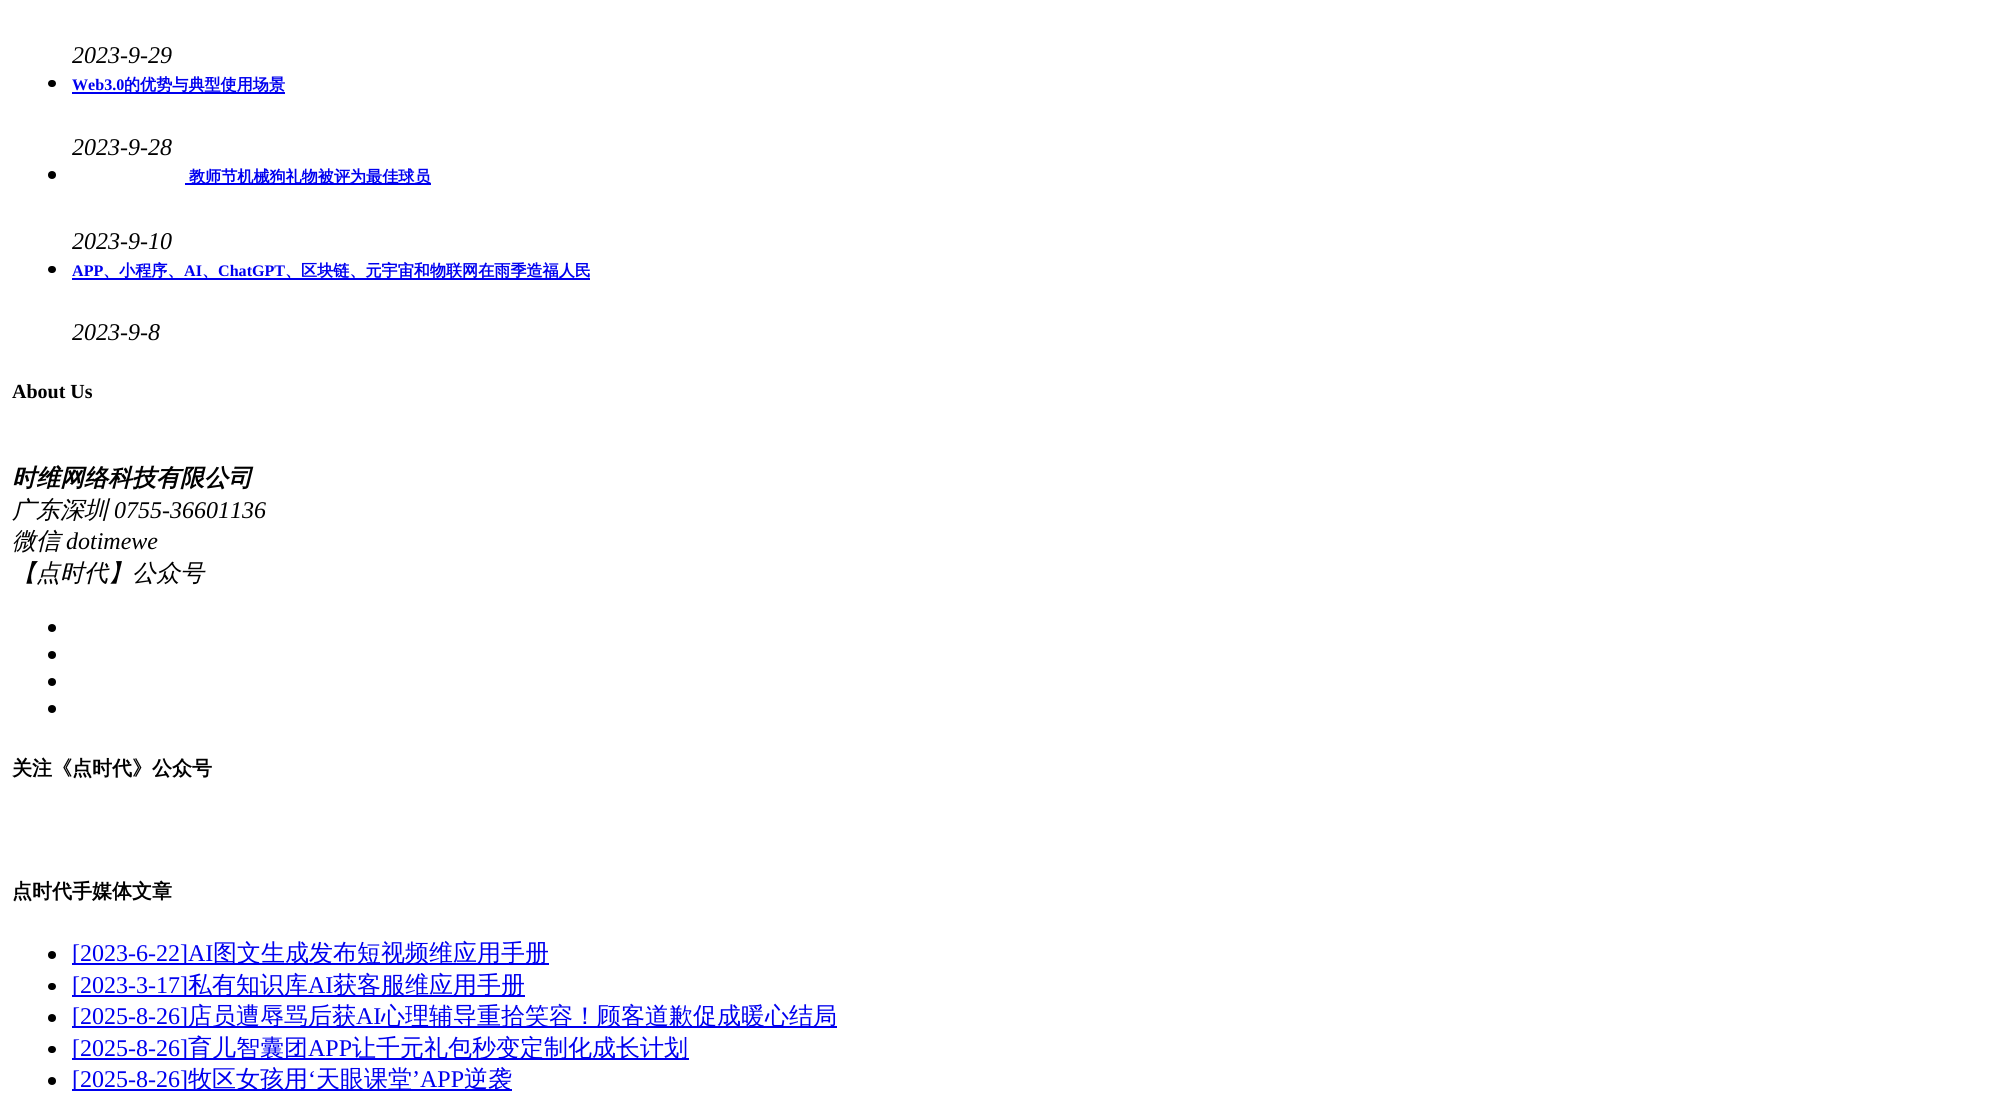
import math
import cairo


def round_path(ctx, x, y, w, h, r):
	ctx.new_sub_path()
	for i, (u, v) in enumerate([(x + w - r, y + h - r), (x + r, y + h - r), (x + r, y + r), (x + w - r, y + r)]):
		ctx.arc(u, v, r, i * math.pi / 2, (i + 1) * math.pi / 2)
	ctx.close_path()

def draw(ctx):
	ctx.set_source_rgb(1, 1, 1)
	ctx.paint()
	ctx.select_font_face('Liberation Serif', cairo.FONT_SLANT_ITALIC)
	ctx.set_font_size(24)
	ctx.set_source_rgb(0, 0, 0)
	ctx.move_to(72, 63)
	ctx.show_text('2023-9-29')
	round_path(ctx, 48, 80, 8, 7, 3.5)
	ctx.fill()
	ctx.select_font_face('Liberation Serif', cairo.FONT_SLANT_NORMAL, cairo.FONT_WEIGHT_BOLD)
	ctx.set_font_size(16.1)
	ctx.set_source_rgb(0, 0, 0.933)
	ctx.move_to(72, 90)
	ctx.show_text('Web3.0')
	ctx.rectangle(72, 92, 213, 2)
	ctx.fill()
	ctx.select_font_face('WenQuanYi Zen Hei', cairo.FONT_SLANT_NORMAL, cairo.FONT_WEIGHT_BOLD)
	ctx.move_to(124, 90)
	ctx.show_text('的优势与典型使用场景')
	ctx.select_font_face('Liberation Serif', cairo.FONT_SLANT_ITALIC)
	ctx.set_font_size(24)
	ctx.set_source_rgb(0, 0, 0)
	ctx.move_to(72, 155)
	ctx.show_text('2023-9-28')
	ctx.new_path()
	ctx.arc(52, 175, 4, 0, 2 * math.pi)
	ctx.fill()
	ctx.set_source_rgb(0, 0, 0.933)
	ctx.rectangle(185, 183, 246, 2)
	ctx.fill()
	ctx.select_font_face('WenQuanYi Zen Hei', cairo.FONT_SLANT_NORMAL, cairo.FONT_WEIGHT_BOLD)
	ctx.set_font_size(16.1)
	ctx.move_to(189, 182)
	ctx.show_text('教师节机械狗礼物被评为最佳球员')
	ctx.select_font_face('Liberation Serif', cairo.FONT_SLANT_ITALIC)
	ctx.set_font_size(24)
	ctx.set_source_rgb(0, 0, 0)
	ctx.move_to(72, 249)
	ctx.show_text('2023-9-10')
	round_path(ctx, 48, 266, 8, 7, 3.5)
	ctx.fill()
	ctx.select_font_face('Liberation Serif', cairo.FONT_SLANT_NORMAL, cairo.FONT_WEIGHT_BOLD)
	ctx.set_font_size(16.1)
	ctx.set_source_rgb(0, 0, 0.933)
	ctx.move_to(72, 276)
	ctx.show_text('APP')
	ctx.rectangle(72, 278, 518, 2)
	ctx.fill()
	ctx.select_font_face('WenQuanYi Zen Hei', cairo.FONT_SLANT_NORMAL, cairo.FONT_WEIGHT_BOLD)
	ctx.move_to(103, 276)
	ctx.show_text('、小程序、')
	ctx.select_font_face('Liberation Serif', cairo.FONT_SLANT_NORMAL, cairo.FONT_WEIGHT_BOLD)
	ctx.move_to(184, 276)
	ctx.show_text('AI')
	ctx.select_font_face('WenQuanYi Zen Hei', cairo.FONT_SLANT_NORMAL, cairo.FONT_WEIGHT_BOLD)
	ctx.move_to(202, 276)
	ctx.show_text('、')
	ctx.select_font_face('Liberation Serif', cairo.FONT_SLANT_NORMAL, cairo.FONT_WEIGHT_BOLD)
	ctx.move_to(218, 276)
	ctx.show_text('ChatGPT')
	ctx.select_font_face('WenQuanYi Zen Hei', cairo.FONT_SLANT_NORMAL, cairo.FONT_WEIGHT_BOLD)
	ctx.move_to(285, 276)
	ctx.show_text('、区块链、元宇宙和物联网在雨季造福人民')
	ctx.select_font_face('Liberation Serif', cairo.FONT_SLANT_ITALIC)
	ctx.set_font_size(24)
	ctx.set_source_rgb(0, 0, 0)
	ctx.move_to(72, 340)
	ctx.show_text('2023-9-8')
	ctx.select_font_face('Liberation Serif', cairo.FONT_SLANT_NORMAL, cairo.FONT_WEIGHT_BOLD)
	ctx.set_font_size(20)
	ctx.move_to(12, 398)
	ctx.show_text('About Us')
	ctx.select_font_face('WenQuanYi Zen Hei', cairo.FONT_SLANT_ITALIC, cairo.FONT_WEIGHT_BOLD)
	ctx.set_font_size(24)
	ctx.move_to(12, 486)
	ctx.show_text('时维网络科技有限公司')
	ctx.select_font_face('WenQuanYi Zen Hei Medium', cairo.FONT_SLANT_ITALIC)
	ctx.move_to(12, 518)
	ctx.show_text('广东深圳')
	ctx.select_font_face('Liberation Serif', cairo.FONT_SLANT_ITALIC)
	ctx.move_to(114, 518)
	ctx.show_text('0755-36601136')
	ctx.select_font_face('WenQuanYi Zen Hei Medium', cairo.FONT_SLANT_ITALIC)
	ctx.move_to(12, 549)
	ctx.show_text('微信')
	ctx.select_font_face('Liberation Serif', cairo.FONT_SLANT_ITALIC)
	ctx.move_to(66, 549)
	ctx.show_text('dotimewe')
	ctx.select_font_face('WenQuanYi Zen Hei Medium', cairo.FONT_SLANT_ITALIC)
	ctx.move_to(12, 581)
	ctx.show_text('【点时代】公众号')
	ctx.new_path()
	ctx.arc(52, 628, 4, 0, 2 * math.pi)
	ctx.fill()
	ctx.arc(52, 655, 4, 0, 2 * math.pi)
	ctx.fill()
	ctx.arc(52, 682, 4, 0, 2 * math.pi)
	ctx.fill()
	ctx.arc(52, 709, 4, 0, 2 * math.pi)
	ctx.fill()
	ctx.select_font_face('WenQuanYi Zen Hei', cairo.FONT_SLANT_NORMAL, cairo.FONT_WEIGHT_BOLD)
	ctx.set_font_size(20)
	ctx.move_to(12, 775)
	ctx.show_text('关注《点时代》公众号')
	ctx.move_to(12, 898)
	ctx.show_text('点时代手媒体文章')
	ctx.new_path()
	ctx.arc(52, 955, 4, 0, 2 * math.pi)
	ctx.fill()
	ctx.set_source_rgb(0, 0, 0.933)
	ctx.rectangle(72, 963, 477, 2)
	ctx.fill()
	ctx.select_font_face('Liberation Serif')
	ctx.set_font_size(24)
	ctx.move_to(72, 961)
	ctx.show_text('[2023-6-22]AI')
	ctx.select_font_face('WenQuanYi Zen Hei Medium')
	ctx.move_to(213, 961)
	ctx.show_text('图文生成发布短视频维应用手册')
	ctx.set_source_rgb(0, 0, 0)
	round_path(ctx, 48, 983, 8, 7, 3.5)
	ctx.fill()
	ctx.set_source_rgb(0, 0, 0.933)
	ctx.rectangle(72, 995, 453, 2)
	ctx.fill()
	ctx.select_font_face('Liberation Serif')
	ctx.move_to(72, 993)
	ctx.show_text('[2023-3-17]')
	ctx.select_font_face('WenQuanYi Zen Hei Medium')
	ctx.move_to(188, 993)
	ctx.show_text('私有知识库')
	ctx.select_font_face('Liberation Serif')
	ctx.move_to(308, 993)
	ctx.show_text('AI')
	ctx.select_font_face('WenQuanYi Zen Hei Medium')
	ctx.move_to(333, 993)
	ctx.show_text('获客服维应用手册')
	ctx.set_source_rgb(0, 0, 0)
	ctx.new_path()
	ctx.arc(52, 1018, 4, 0, 2 * math.pi)
	ctx.fill()
	ctx.set_source_rgb(0, 0, 0.933)
	ctx.rectangle(72, 1026, 765, 2)
	ctx.fill()
	ctx.select_font_face('Liberation Serif')
	ctx.move_to(72, 1024)
	ctx.show_text('[2025-8-26]')
	ctx.select_font_face('WenQuanYi Zen Hei Medium')
	ctx.move_to(188, 1024)
	ctx.show_text('店员遭辱骂后获')
	ctx.select_font_face('Liberation Serif')
	ctx.move_to(356, 1024)
	ctx.show_text('AI')
	ctx.select_font_face('WenQuanYi Zen Hei Medium')
	ctx.move_to(381, 1024)
	ctx.show_text('心理辅导重拾笑容！顾客道歉促成暖心结局')
	ctx.set_source_rgb(0, 0, 0)
	round_path(ctx, 48, 1046, 8, 7, 3.5)
	ctx.fill()
	ctx.set_source_rgb(0, 0, 0.933)
	ctx.rectangle(72, 1058, 617, 2)
	ctx.fill()
	ctx.select_font_face('Liberation Serif')
	ctx.move_to(72, 1056)
	ctx.show_text('[2025-8-26]')
	ctx.select_font_face('WenQuanYi Zen Hei Medium')
	ctx.move_to(188, 1056)
	ctx.show_text('育儿智囊团')
	ctx.select_font_face('Liberation Serif')
	ctx.move_to(308, 1056)
	ctx.show_text('APP')
	ctx.select_font_face('WenQuanYi Zen Hei Medium')
	ctx.move_to(352, 1056)
	ctx.show_text('让千元礼包秒变定制化成长计划')
	ctx.set_source_rgb(0, 0, 0)
	ctx.new_path()
	ctx.arc(52, 1081, 4, 0, 2 * math.pi)
	ctx.fill()
	ctx.set_source_rgb(0, 0, 0.933)
	ctx.rectangle(72, 1089, 440, 2)
	ctx.fill()
	ctx.select_font_face('Liberation Serif')
	ctx.move_to(72, 1087)
	ctx.show_text('[2025-8-26]')
	ctx.select_font_face('WenQuanYi Zen Hei Medium')
	ctx.move_to(188, 1087)
	ctx.show_text('牧区女孩用')
	ctx.select_font_face('Liberation Serif')
	ctx.move_to(308, 1087)
	ctx.show_text('‘')
	ctx.select_font_face('WenQuanYi Zen Hei Medium')
	ctx.move_to(316, 1087)
	ctx.show_text('天眼课堂')
	ctx.select_font_face('Liberation Serif')
	ctx.move_to(412, 1087)
	ctx.show_text('’APP')
	ctx.select_font_face('WenQuanYi Zen Hei Medium')
	ctx.move_to(464, 1087)
	ctx.show_text('逆袭')


surface = cairo.ImageSurface(cairo.FORMAT_RGB24, 2010, 1101)
ctx = cairo.Context(surface)
options = cairo.FontOptions()
options.set_hint_metrics(cairo.HINT_METRICS_OFF)
options.set_hint_style(cairo.HINT_STYLE_NONE)
ctx.set_font_options(options)
ctx.set_miter_limit(4)
draw(ctx)
surface.write_to_png('image.png')
